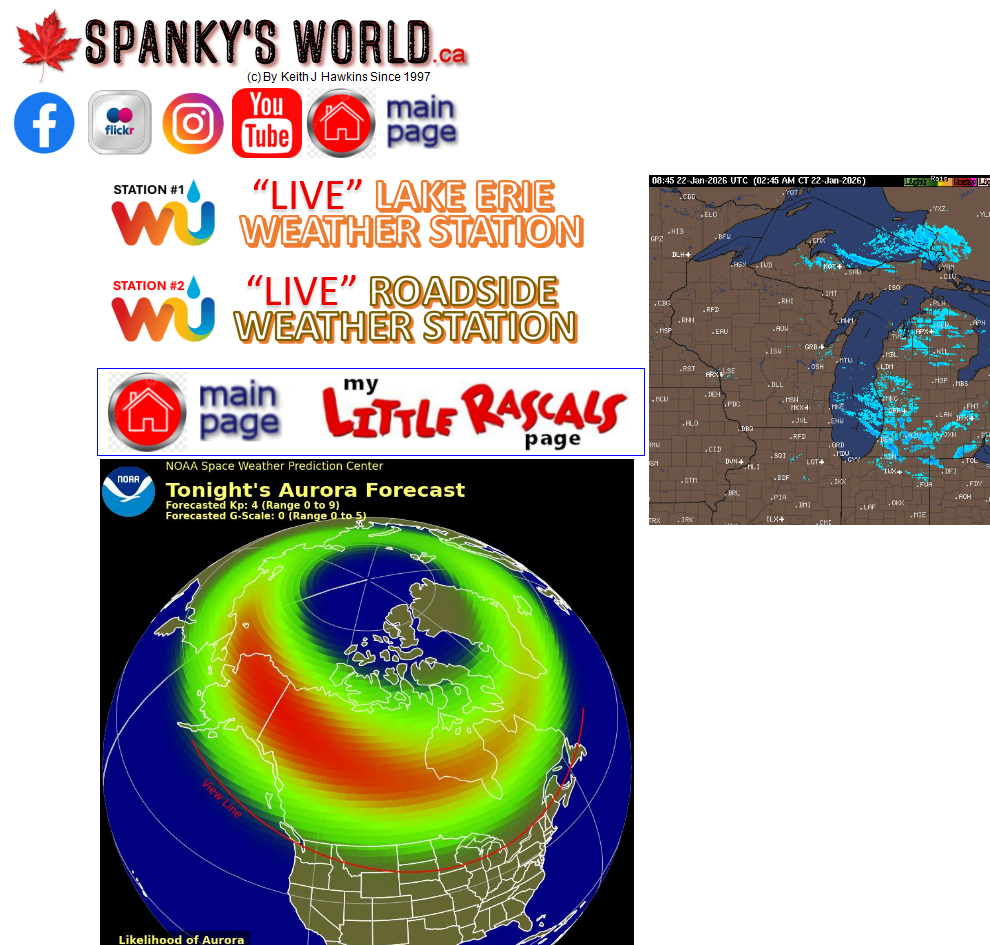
import math
import cairo


def paste(ctx, path, x, y, w, h):
	ctx.save()
	ctx.set_source_surface(cairo.ImageSurface.create_from_png(path), x, y)
	ctx.rectangle(x, y, w, h)
	ctx.fill()
	ctx.restore()

def draw(ctx):
	ctx.set_source_rgb(1, 1, 1)
	ctx.paint()
	paste(ctx, 'media/1.png', 14, 8, 457, 76)
	paste(ctx, 'media/2.png', 13, 91, 62, 63)
	paste(ctx, 'media/3.png', 88, 90, 64, 65)
	paste(ctx, 'media/4.png', 162, 92, 63, 63)
	paste(ctx, 'media/5.png', 232, 88, 70, 70)
	paste(ctx, 'media/6.png', 306, 88, 154, 70)
	paste(ctx, 'media/7.png', 111, 178, 473, 70)
	paste(ctx, 'media/8.png', 111, 274, 467, 70)
	ctx.rectangle(97.5, 368.5, 547, 87)
	ctx.set_source_rgb(0, 0, 1)
	ctx.set_line_width(1)
	ctx.stroke()
	paste(ctx, 'media/9.png', 107, 372, 188, 80)
	paste(ctx, 'media/10.png', 320, 378, 309, 73)
	ctx.rectangle(101, 460, 532, 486)
	ctx.set_source_rgb(0, 0, 0)
	ctx.set_line_width(2)
	ctx.stroke()
	paste(ctx, 'media/11.png', 102, 461, 530, 484)
	paste(ctx, 'media/12.png', 649, 175, 341, 350)


surface = cairo.ImageSurface(cairo.FORMAT_RGB24, 990, 945)
ctx = cairo.Context(surface)
options = cairo.FontOptions()
options.set_hint_metrics(cairo.HINT_METRICS_OFF)
options.set_hint_style(cairo.HINT_STYLE_NONE)
ctx.set_font_options(options)
ctx.set_miter_limit(4)
draw(ctx)
surface.write_to_png('image.png')
